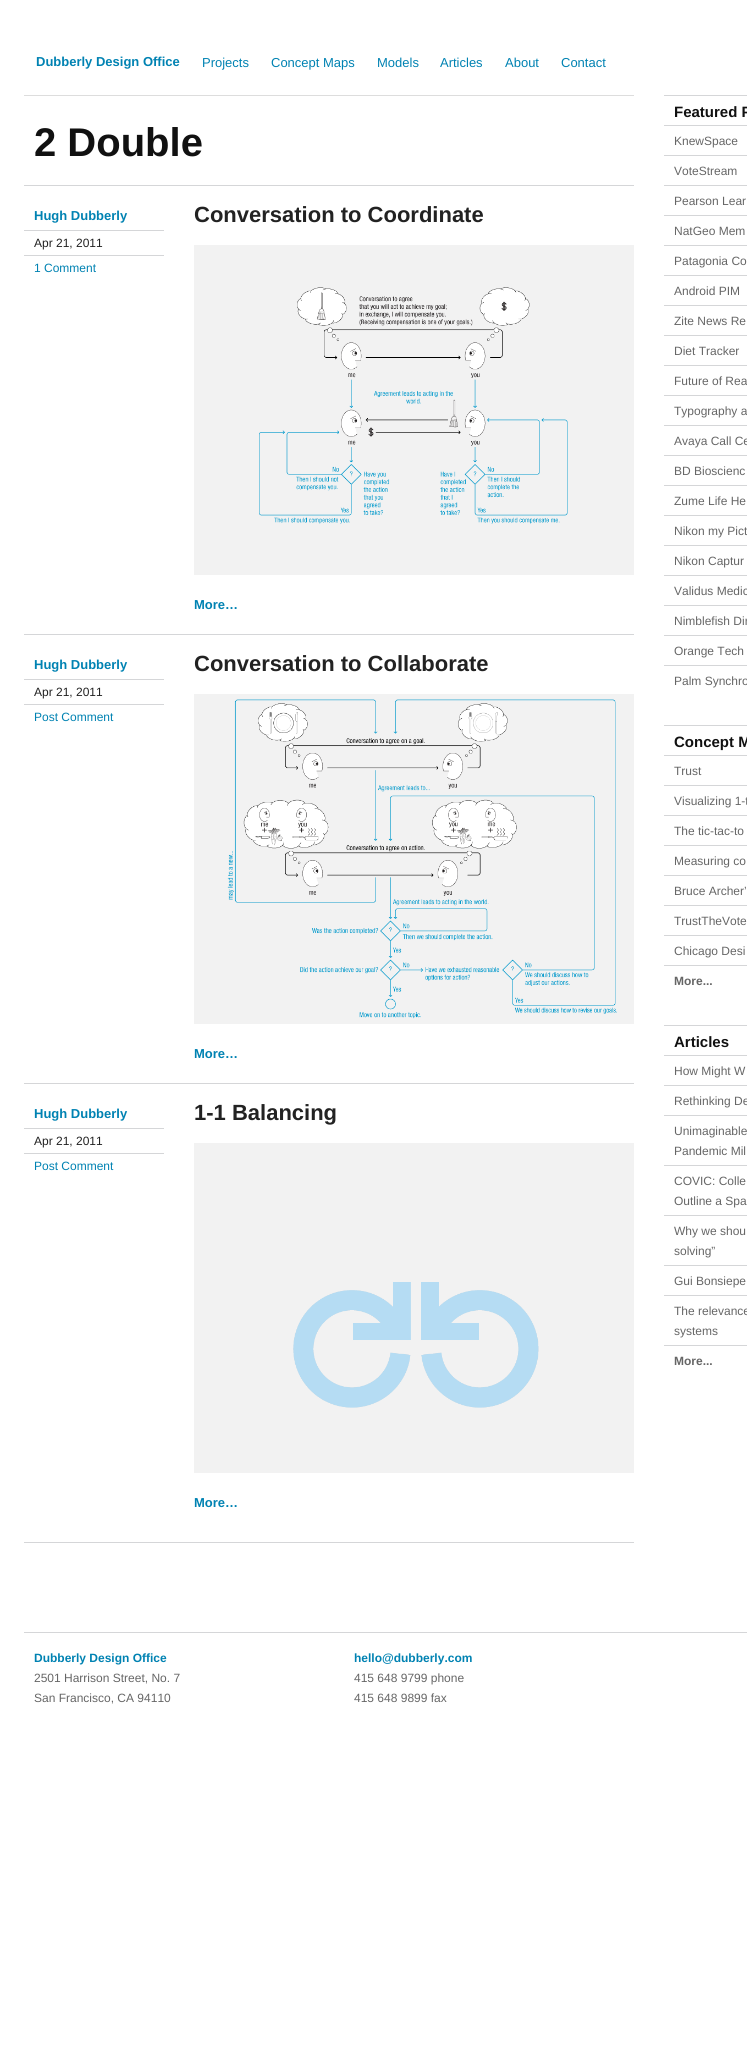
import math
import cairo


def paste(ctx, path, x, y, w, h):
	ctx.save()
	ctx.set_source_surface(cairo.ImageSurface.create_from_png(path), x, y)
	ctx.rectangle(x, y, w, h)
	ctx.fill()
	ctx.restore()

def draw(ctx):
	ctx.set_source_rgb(1, 1, 1)
	ctx.paint()
	ctx.select_font_face('Liberation Sans', cairo.FONT_SLANT_NORMAL, cairo.FONT_WEIGHT_BOLD)
	ctx.set_font_size(13)
	ctx.set_source_rgb(0, 0.51, 0.698)
	ctx.move_to(36, 66)
	ctx.show_text('Dubberly Design Office')
	ctx.select_font_face('Liberation Sans')
	for x, y, s in [
		(202, 67, 'Projects'),
		(271, 67, 'Concept Maps'),
		(377, 67, 'Models'),
		(440, 67, 'Articles'),
		(505, 67, 'About'),
		(561, 67, 'Contact'),
	]:
		ctx.move_to(x, y)
		ctx.show_text(s)
	ctx.set_source_rgb(0.867, 0.867, 0.867)
	ctx.rectangle(24, 95, 610, 1)
	ctx.fill()
	ctx.select_font_face('Liberation Sans', cairo.FONT_SLANT_NORMAL, cairo.FONT_WEIGHT_BOLD)
	ctx.set_font_size(40)
	ctx.set_source_rgb(0.067, 0.067, 0.067)
	ctx.move_to(34, 156)
	ctx.show_text('2 Double')
	ctx.set_source_rgb(0.835, 0.839, 0.847)
	ctx.rectangle(24, 185, 610, 1)
	ctx.fill()
	ctx.set_font_size(13)
	ctx.set_source_rgb(0, 0.51, 0.698)
	ctx.move_to(34, 220)
	ctx.show_text('Hugh Dubberly')
	ctx.set_source_rgb(0.835, 0.839, 0.847)
	ctx.rectangle(24, 230, 140, 1)
	ctx.fill()
	ctx.select_font_face('Liberation Sans')
	ctx.set_font_size(12)
	ctx.set_source_rgb(0.133, 0.133, 0.133)
	ctx.move_to(34, 247)
	ctx.show_text('Apr 21, 2011')
	ctx.set_source_rgb(0.835, 0.839, 0.847)
	ctx.rectangle(24, 255, 140, 1)
	ctx.fill()
	ctx.set_source_rgb(0, 0.51, 0.698)
	ctx.move_to(34, 272)
	ctx.show_text('1 Comment')
	ctx.select_font_face('Liberation Sans', cairo.FONT_SLANT_NORMAL, cairo.FONT_WEIGHT_BOLD)
	ctx.set_font_size(22)
	ctx.set_source_rgb(0.133, 0.133, 0.133)
	ctx.move_to(194, 222)
	ctx.show_text('Conversation to Coordinate')
	paste(ctx, 'media/1.png', 194, 245, 440, 330)
	ctx.set_font_size(13)
	ctx.set_source_rgb(0, 0.51, 0.698)
	ctx.move_to(194, 609)
	ctx.show_text('More…')
	ctx.set_source_rgb(0.835, 0.839, 0.847)
	ctx.rectangle(24, 634, 610, 1)
	ctx.fill()
	ctx.set_source_rgb(0, 0.51, 0.698)
	ctx.move_to(34, 669)
	ctx.show_text('Hugh Dubberly')
	ctx.set_source_rgb(0.835, 0.839, 0.847)
	ctx.rectangle(24, 679, 140, 1)
	ctx.fill()
	ctx.select_font_face('Liberation Sans')
	ctx.set_font_size(12)
	ctx.set_source_rgb(0.133, 0.133, 0.133)
	ctx.move_to(34, 696)
	ctx.show_text('Apr 21, 2011')
	ctx.set_source_rgb(0.835, 0.839, 0.847)
	ctx.rectangle(24, 704, 140, 1)
	ctx.fill()
	ctx.set_source_rgb(0, 0.51, 0.698)
	ctx.move_to(34, 721)
	ctx.show_text('Post Comment')
	ctx.select_font_face('Liberation Sans', cairo.FONT_SLANT_NORMAL, cairo.FONT_WEIGHT_BOLD)
	ctx.set_font_size(22)
	ctx.set_source_rgb(0.133, 0.133, 0.133)
	ctx.move_to(194, 671)
	ctx.show_text('Conversation to Collaborate')
	paste(ctx, 'media/2.png', 194, 694, 440, 330)
	ctx.set_font_size(13)
	ctx.set_source_rgb(0, 0.51, 0.698)
	ctx.move_to(194, 1058)
	ctx.show_text('More…')
	ctx.set_source_rgb(0.835, 0.839, 0.847)
	ctx.rectangle(24, 1083, 610, 1)
	ctx.fill()
	ctx.set_source_rgb(0, 0.51, 0.698)
	ctx.move_to(34, 1118)
	ctx.show_text('Hugh Dubberly')
	ctx.set_source_rgb(0.835, 0.839, 0.847)
	ctx.rectangle(24, 1128, 140, 1)
	ctx.fill()
	ctx.select_font_face('Liberation Sans')
	ctx.set_font_size(12)
	ctx.set_source_rgb(0.133, 0.133, 0.133)
	ctx.move_to(34, 1145)
	ctx.show_text('Apr 21, 2011')
	ctx.set_source_rgb(0.835, 0.839, 0.847)
	ctx.rectangle(24, 1153, 140, 1)
	ctx.fill()
	ctx.set_source_rgb(0, 0.51, 0.698)
	ctx.move_to(34, 1170)
	ctx.show_text('Post Comment')
	ctx.select_font_face('Liberation Sans', cairo.FONT_SLANT_NORMAL, cairo.FONT_WEIGHT_BOLD)
	ctx.set_font_size(22)
	ctx.set_source_rgb(0.133, 0.133, 0.133)
	ctx.move_to(194, 1120)
	ctx.show_text('1-1 Balancing')
	paste(ctx, 'media/3.png', 194, 1143, 440, 330)
	ctx.set_font_size(13)
	ctx.set_source_rgb(0, 0.51, 0.698)
	ctx.move_to(194, 1507)
	ctx.show_text('More…')
	ctx.set_source_rgb(0.835, 0.839, 0.847)
	ctx.rectangle(24, 1542, 610, 1)
	ctx.fill()
	ctx.rectangle(664, 95, 83, 1)
	ctx.fill()
	ctx.set_font_size(15)
	ctx.set_source_rgb(0.067, 0.067, 0.067)
	ctx.move_to(674, 117)
	ctx.show_text('Featured P')
	ctx.set_source_rgb(0.835, 0.839, 0.847)
	ctx.rectangle(664, 125, 83, 1)
	ctx.fill()
	ctx.select_font_face('Liberation Sans')
	ctx.set_font_size(12)
	ctx.set_source_rgb(0.4, 0.4, 0.4)
	ctx.move_to(674, 145)
	ctx.show_text('KnewSpace')
	ctx.set_source_rgb(0.835, 0.839, 0.847)
	ctx.rectangle(664, 155, 83, 1)
	ctx.fill()
	ctx.set_source_rgb(0.4, 0.4, 0.4)
	ctx.move_to(674, 175)
	ctx.show_text('VoteStream')
	ctx.set_source_rgb(0.835, 0.839, 0.847)
	ctx.rectangle(664, 185, 83, 1)
	ctx.fill()
	ctx.set_source_rgb(0.4, 0.4, 0.4)
	ctx.move_to(674, 205)
	ctx.show_text('Pearson Lear')
	ctx.set_source_rgb(0.835, 0.839, 0.847)
	ctx.rectangle(664, 215, 83, 1)
	ctx.fill()
	ctx.set_source_rgb(0.4, 0.4, 0.4)
	ctx.move_to(674, 235)
	ctx.show_text('NatGeo Mem')
	ctx.set_source_rgb(0.835, 0.839, 0.847)
	ctx.rectangle(664, 245, 83, 1)
	ctx.fill()
	ctx.set_source_rgb(0.4, 0.4, 0.4)
	ctx.move_to(674, 265)
	ctx.show_text('Patagonia Co')
	ctx.set_source_rgb(0.835, 0.839, 0.847)
	ctx.rectangle(664, 275, 83, 1)
	ctx.fill()
	ctx.set_source_rgb(0.4, 0.4, 0.4)
	ctx.move_to(674, 295)
	ctx.show_text('Android PIM')
	ctx.set_source_rgb(0.835, 0.839, 0.847)
	ctx.rectangle(664, 305, 83, 1)
	ctx.fill()
	ctx.set_source_rgb(0.4, 0.4, 0.4)
	ctx.move_to(674, 325)
	ctx.show_text('Zite News Re')
	ctx.set_source_rgb(0.835, 0.839, 0.847)
	ctx.rectangle(664, 335, 83, 1)
	ctx.fill()
	ctx.set_source_rgb(0.4, 0.4, 0.4)
	ctx.move_to(674, 355)
	ctx.show_text('Diet Tracker')
	ctx.set_source_rgb(0.835, 0.839, 0.847)
	ctx.rectangle(664, 365, 83, 1)
	ctx.fill()
	ctx.set_source_rgb(0.4, 0.4, 0.4)
	ctx.move_to(674, 385)
	ctx.show_text('Future of Rea')
	ctx.set_source_rgb(0.835, 0.839, 0.847)
	ctx.rectangle(664, 395, 83, 1)
	ctx.fill()
	ctx.set_source_rgb(0.4, 0.4, 0.4)
	ctx.move_to(674, 415)
	ctx.show_text('Typography a')
	ctx.set_source_rgb(0.835, 0.839, 0.847)
	ctx.rectangle(664, 425, 83, 1)
	ctx.fill()
	ctx.set_source_rgb(0.4, 0.4, 0.4)
	ctx.move_to(674, 445)
	ctx.show_text('Avaya Call Ce')
	ctx.set_source_rgb(0.835, 0.839, 0.847)
	ctx.rectangle(664, 455, 83, 1)
	ctx.fill()
	ctx.set_source_rgb(0.4, 0.4, 0.4)
	ctx.move_to(674, 475)
	ctx.show_text('BD Bioscienc')
	ctx.set_source_rgb(0.835, 0.839, 0.847)
	ctx.rectangle(664, 485, 83, 1)
	ctx.fill()
	ctx.set_source_rgb(0.4, 0.4, 0.4)
	ctx.move_to(674, 505)
	ctx.show_text('Zume Life He')
	ctx.set_source_rgb(0.835, 0.839, 0.847)
	ctx.rectangle(664, 515, 83, 1)
	ctx.fill()
	ctx.set_source_rgb(0.4, 0.4, 0.4)
	ctx.move_to(674, 535)
	ctx.show_text('Nikon my Pict')
	ctx.set_source_rgb(0.835, 0.839, 0.847)
	ctx.rectangle(664, 545, 83, 1)
	ctx.fill()
	ctx.set_source_rgb(0.4, 0.4, 0.4)
	ctx.move_to(674, 565)
	ctx.show_text('Nikon Captur')
	ctx.set_source_rgb(0.835, 0.839, 0.847)
	ctx.rectangle(664, 575, 83, 1)
	ctx.fill()
	ctx.set_source_rgb(0.4, 0.4, 0.4)
	ctx.move_to(674, 595)
	ctx.show_text('Validus Medic')
	ctx.set_source_rgb(0.835, 0.839, 0.847)
	ctx.rectangle(664, 605, 83, 1)
	ctx.fill()
	ctx.set_source_rgb(0.4, 0.4, 0.4)
	ctx.move_to(674, 625)
	ctx.show_text('Nimblefish Dir')
	ctx.set_source_rgb(0.835, 0.839, 0.847)
	ctx.rectangle(664, 635, 83, 1)
	ctx.fill()
	ctx.set_source_rgb(0.4, 0.4, 0.4)
	ctx.move_to(674, 655)
	ctx.show_text('Orange Tech')
	ctx.set_source_rgb(0.835, 0.839, 0.847)
	ctx.rectangle(664, 665, 83, 1)
	ctx.fill()
	ctx.set_source_rgb(0.4, 0.4, 0.4)
	ctx.move_to(674, 685)
	ctx.show_text('Palm Synchro')
	ctx.set_source_rgb(0.835, 0.839, 0.847)
	ctx.rectangle(664, 725, 83, 1)
	ctx.fill()
	ctx.select_font_face('Liberation Sans', cairo.FONT_SLANT_NORMAL, cairo.FONT_WEIGHT_BOLD)
	ctx.set_font_size(15)
	ctx.set_source_rgb(0.067, 0.067, 0.067)
	ctx.move_to(674, 747)
	ctx.show_text('Concept M')
	ctx.set_source_rgb(0.835, 0.839, 0.847)
	ctx.rectangle(664, 755, 83, 1)
	ctx.fill()
	ctx.select_font_face('Liberation Sans')
	ctx.set_font_size(12)
	ctx.set_source_rgb(0.4, 0.4, 0.4)
	ctx.move_to(674, 775)
	ctx.show_text('Trust')
	ctx.set_source_rgb(0.835, 0.839, 0.847)
	ctx.rectangle(664, 785, 83, 1)
	ctx.fill()
	ctx.set_source_rgb(0.4, 0.4, 0.4)
	ctx.move_to(674, 805)
	ctx.show_text('Visualizing 1-t')
	ctx.set_source_rgb(0.835, 0.839, 0.847)
	ctx.rectangle(664, 815, 83, 1)
	ctx.fill()
	ctx.set_source_rgb(0.4, 0.4, 0.4)
	ctx.move_to(674, 835)
	ctx.show_text('The tic-tac-to')
	ctx.set_source_rgb(0.835, 0.839, 0.847)
	ctx.rectangle(664, 845, 83, 1)
	ctx.fill()
	ctx.set_source_rgb(0.4, 0.4, 0.4)
	ctx.move_to(674, 865)
	ctx.show_text('Measuring co')
	ctx.set_source_rgb(0.835, 0.839, 0.847)
	ctx.rectangle(664, 875, 83, 1)
	ctx.fill()
	ctx.set_source_rgb(0.4, 0.4, 0.4)
	ctx.move_to(674, 895)
	ctx.show_text('Bruce Archer’')
	ctx.set_source_rgb(0.835, 0.839, 0.847)
	ctx.rectangle(664, 905, 83, 1)
	ctx.fill()
	ctx.set_source_rgb(0.4, 0.4, 0.4)
	ctx.move_to(674, 925)
	ctx.show_text('TrustTheVote')
	ctx.set_source_rgb(0.835, 0.839, 0.847)
	ctx.rectangle(664, 935, 83, 1)
	ctx.fill()
	ctx.set_source_rgb(0.4, 0.4, 0.4)
	ctx.move_to(674, 955)
	ctx.show_text('Chicago Desi')
	ctx.set_source_rgb(0.835, 0.839, 0.847)
	ctx.rectangle(664, 965, 83, 1)
	ctx.fill()
	ctx.select_font_face('Liberation Sans', cairo.FONT_SLANT_NORMAL, cairo.FONT_WEIGHT_BOLD)
	ctx.set_source_rgb(0.4, 0.4, 0.4)
	ctx.move_to(674, 985)
	ctx.show_text('More...')
	ctx.set_source_rgb(0.835, 0.839, 0.847)
	ctx.rectangle(664, 1025, 83, 1)
	ctx.fill()
	ctx.set_font_size(15)
	ctx.set_source_rgb(0.067, 0.067, 0.067)
	ctx.move_to(674, 1047)
	ctx.show_text('Articles')
	ctx.set_source_rgb(0.835, 0.839, 0.847)
	ctx.rectangle(664, 1055, 83, 1)
	ctx.fill()
	ctx.select_font_face('Liberation Sans')
	ctx.set_font_size(12)
	ctx.set_source_rgb(0.4, 0.4, 0.4)
	ctx.move_to(674, 1075)
	ctx.show_text('How Might W')
	ctx.set_source_rgb(0.835, 0.839, 0.847)
	ctx.rectangle(664, 1085, 83, 1)
	ctx.fill()
	ctx.set_source_rgb(0.4, 0.4, 0.4)
	ctx.move_to(674, 1105)
	ctx.show_text('Rethinking De')
	ctx.set_source_rgb(0.835, 0.839, 0.847)
	ctx.rectangle(664, 1115, 83, 1)
	ctx.fill()
	ctx.set_source_rgb(0.4, 0.4, 0.4)
	ctx.move_to(674, 1135)
	ctx.show_text('Unimaginable')
	ctx.move_to(674, 1155)
	ctx.show_text('Pandemic Mil')
	ctx.set_source_rgb(0.835, 0.839, 0.847)
	ctx.rectangle(664, 1165, 83, 1)
	ctx.fill()
	ctx.set_source_rgb(0.4, 0.4, 0.4)
	ctx.move_to(674, 1185)
	ctx.show_text('COVIC: Colle')
	ctx.move_to(674, 1205)
	ctx.show_text('Outline a Spa')
	ctx.set_source_rgb(0.835, 0.839, 0.847)
	ctx.rectangle(664, 1215, 83, 1)
	ctx.fill()
	ctx.set_source_rgb(0.4, 0.4, 0.4)
	ctx.move_to(674, 1235)
	ctx.show_text('Why we shou')
	ctx.move_to(674, 1255)
	ctx.show_text('solving”')
	ctx.set_source_rgb(0.835, 0.839, 0.847)
	ctx.rectangle(664, 1265, 83, 1)
	ctx.fill()
	ctx.set_source_rgb(0.4, 0.4, 0.4)
	ctx.move_to(674, 1285)
	ctx.show_text('Gui Bonsiepe')
	ctx.set_source_rgb(0.835, 0.839, 0.847)
	ctx.rectangle(664, 1295, 83, 1)
	ctx.fill()
	ctx.set_source_rgb(0.4, 0.4, 0.4)
	ctx.move_to(674, 1315)
	ctx.show_text('The relevance')
	ctx.move_to(674, 1335)
	ctx.show_text('systems')
	ctx.set_source_rgb(0.835, 0.839, 0.847)
	ctx.rectangle(664, 1345, 83, 1)
	ctx.fill()
	ctx.select_font_face('Liberation Sans', cairo.FONT_SLANT_NORMAL, cairo.FONT_WEIGHT_BOLD)
	ctx.set_source_rgb(0.4, 0.4, 0.4)
	ctx.move_to(674, 1365)
	ctx.show_text('More...')
	ctx.set_source_rgb(0.835, 0.839, 0.847)
	ctx.rectangle(24, 1632, 723, 1)
	ctx.fill()
	ctx.set_source_rgb(0, 0.51, 0.698)
	ctx.move_to(34, 1662)
	ctx.show_text('Dubberly Design Office')
	ctx.select_font_face('Liberation Sans')
	ctx.set_source_rgb(0.4, 0.4, 0.4)
	ctx.move_to(34, 1682)
	ctx.show_text('2501 Harrison Street, No. 7')
	ctx.move_to(34, 1702)
	ctx.show_text('San Francisco, CA 94110')
	ctx.select_font_face('Liberation Sans', cairo.FONT_SLANT_NORMAL, cairo.FONT_WEIGHT_BOLD)
	ctx.set_source_rgb(0, 0.51, 0.698)
	ctx.move_to(354, 1662)
	ctx.show_text('hello@dubberly.com')
	ctx.select_font_face('Liberation Sans')
	ctx.set_source_rgb(0.4, 0.4, 0.4)
	ctx.move_to(354, 1682)
	ctx.show_text('415 648 9799 phone')
	ctx.move_to(354, 1702)
	ctx.show_text('415 648 9899 fax')


surface = cairo.ImageSurface(cairo.FORMAT_RGB24, 747, 2066)
ctx = cairo.Context(surface)
options = cairo.FontOptions()
options.set_hint_metrics(cairo.HINT_METRICS_OFF)
options.set_hint_style(cairo.HINT_STYLE_NONE)
ctx.set_font_options(options)
ctx.set_miter_limit(4)
draw(ctx)
surface.write_to_png('image.png')
